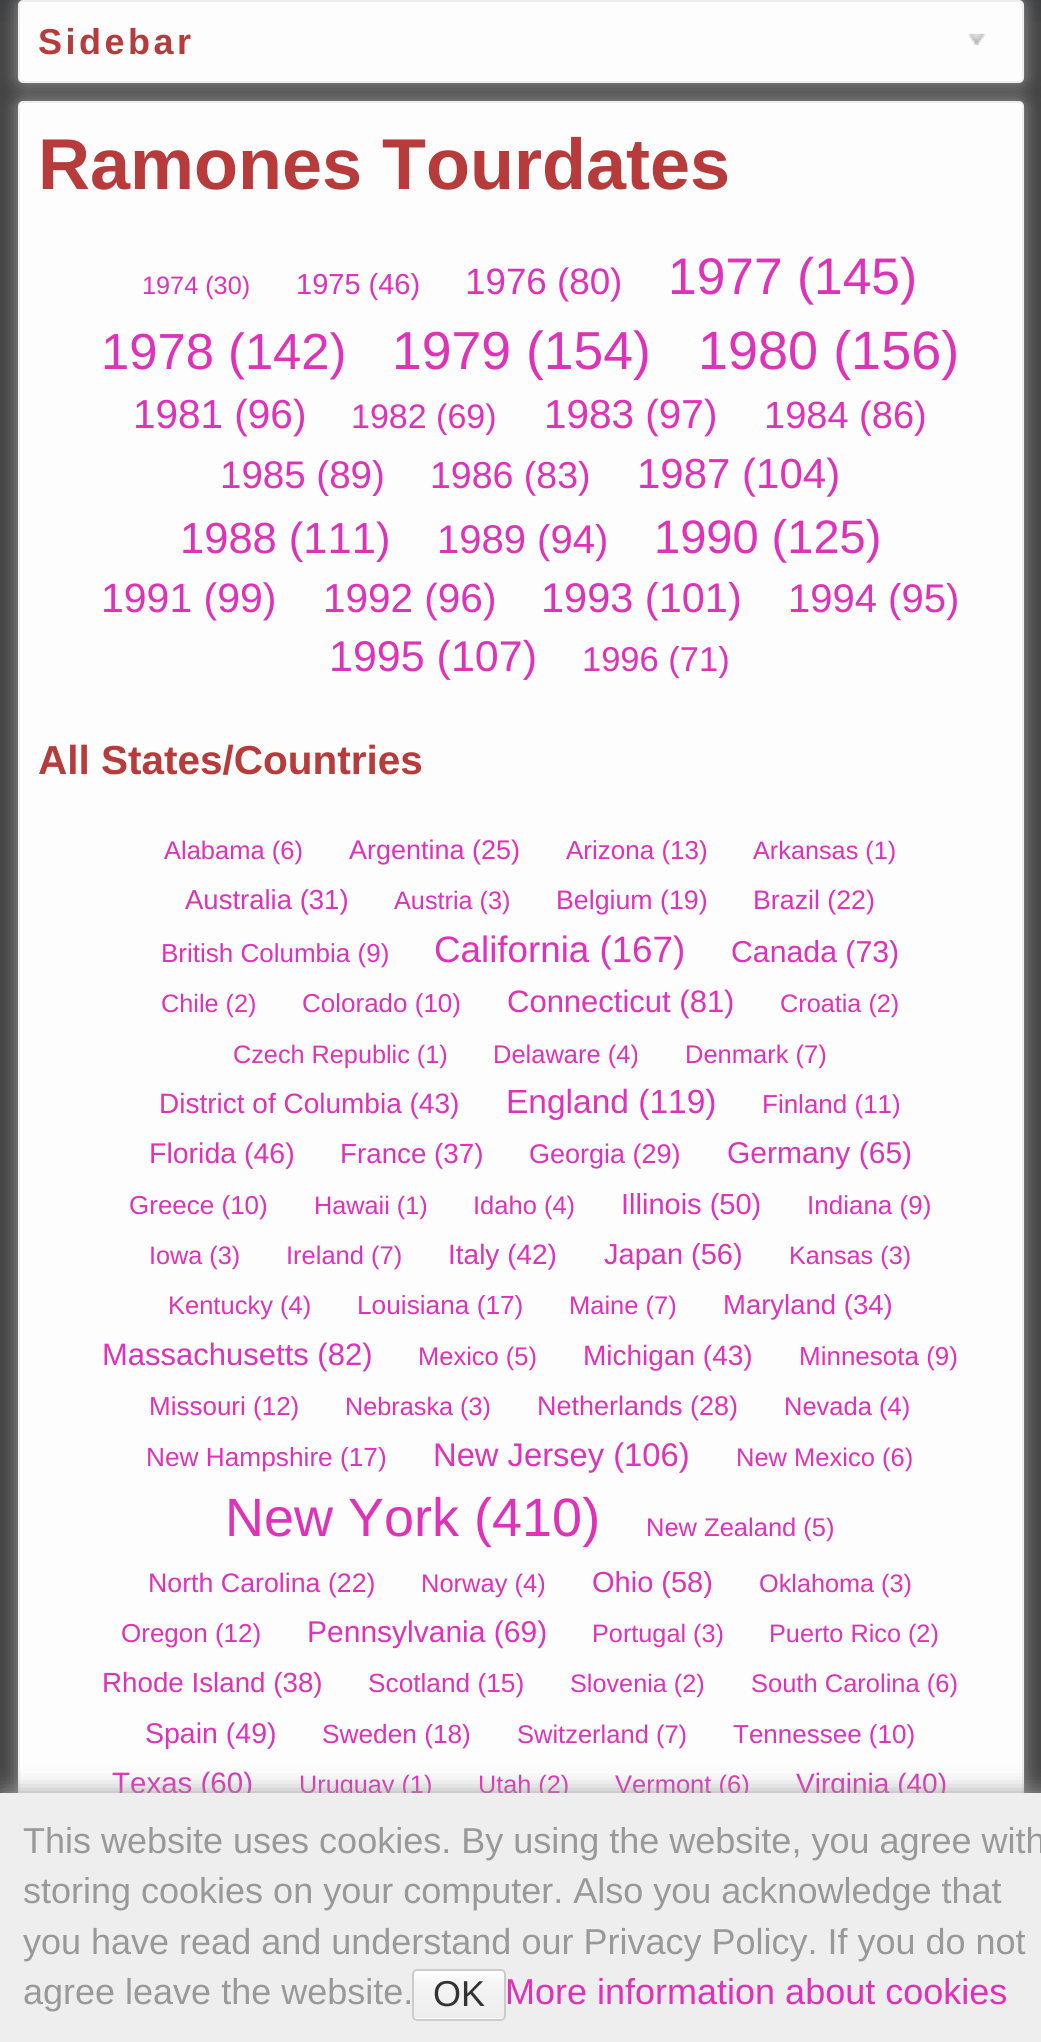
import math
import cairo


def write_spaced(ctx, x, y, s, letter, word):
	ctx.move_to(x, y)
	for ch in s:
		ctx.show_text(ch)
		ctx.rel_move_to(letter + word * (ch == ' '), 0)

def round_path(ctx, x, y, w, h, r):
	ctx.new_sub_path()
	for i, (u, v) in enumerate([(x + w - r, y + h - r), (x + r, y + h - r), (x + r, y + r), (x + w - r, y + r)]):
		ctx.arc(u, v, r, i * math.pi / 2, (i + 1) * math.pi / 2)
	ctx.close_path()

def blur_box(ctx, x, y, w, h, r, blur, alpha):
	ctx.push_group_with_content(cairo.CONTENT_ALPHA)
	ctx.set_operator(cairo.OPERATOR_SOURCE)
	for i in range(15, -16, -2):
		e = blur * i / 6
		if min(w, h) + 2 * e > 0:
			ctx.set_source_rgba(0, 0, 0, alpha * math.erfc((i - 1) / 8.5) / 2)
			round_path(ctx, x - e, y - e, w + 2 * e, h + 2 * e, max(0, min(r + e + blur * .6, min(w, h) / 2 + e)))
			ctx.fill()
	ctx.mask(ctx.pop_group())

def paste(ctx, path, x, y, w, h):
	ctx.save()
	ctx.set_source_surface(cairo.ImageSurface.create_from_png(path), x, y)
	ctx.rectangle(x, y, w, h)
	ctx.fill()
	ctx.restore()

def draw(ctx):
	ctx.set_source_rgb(0.267, 0.267, 0.267)
	ctx.paint()
	paste(ctx, 'media/1.png', 0, 0, 1041, 22)
	ctx.set_source_rgb(0.6, 0.6, 0.6)
	blur_box(ctx, 18, 101, 1006, 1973, 5, 9, 1)
	ctx.set_source_rgb(0.992, 0.992, 0.992)
	round_path(ctx, 19, 102, 1004, 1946, 4)
	ctx.fill_preserve()
	ctx.set_source_rgb(0.933, 0.933, 0.933)
	ctx.stroke()
	ctx.set_source_rgb(0.6, 0.6, 0.6)
	blur_box(ctx, 18, 0, 1006, 83, 5, 9, 1)
	ctx.set_source_rgb(0.992, 0.992, 0.992)
	round_path(ctx, 19, 1, 1004, 81, 4)
	ctx.fill_preserve()
	ctx.set_source_rgb(0.933, 0.933, 0.933)
	ctx.stroke()
	ctx.select_font_face('Liberation Sans', cairo.FONT_SLANT_NORMAL, cairo.FONT_WEIGHT_BOLD)
	ctx.set_font_size(36)
	ctx.set_source_rgb(0.722, 0.231, 0.231)
	write_spaced(ctx, 38, 54, 'Sidebar', 3.5, 0)
	paste(ctx, 'media/2.png', 968, 33, 18, 12)
	ctx.set_font_size(72)
	ctx.move_to(38, 189)
	ctx.show_text('Ramones Tourdates')
	ctx.select_font_face('Liberation Sans')
	ctx.set_font_size(25.25)
	ctx.set_source_rgb(0.875, 0.196, 0.722)
	ctx.move_to(142, 294)
	ctx.show_text('1974 (30)')
	ctx.set_font_size(29)
	ctx.move_to(296, 294)
	ctx.show_text('1975 (46)')
	ctx.set_font_size(36.75)
	ctx.move_to(465, 294)
	ctx.show_text('1976 (80)')
	ctx.set_font_size(51.5)
	ctx.move_to(668, 294)
	ctx.show_text('1977 (145)')
	ctx.set_font_size(50.75)
	ctx.move_to(101, 369)
	ctx.show_text('1978 (142)')
	ctx.set_font_size(53.5)
	ctx.move_to(392, 369)
	ctx.show_text('1979 (154)')
	ctx.set_font_size(54)
	ctx.move_to(698, 369)
	ctx.show_text('1980 (156)')
	ctx.set_font_size(40.5)
	ctx.move_to(133, 428)
	ctx.show_text('1981 (96)')
	ctx.set_font_size(34)
	ctx.move_to(351, 428)
	ctx.show_text('1982 (69)')
	ctx.set_font_size(40.5)
	ctx.move_to(544, 428)
	ctx.show_text('1983 (97)')
	ctx.set_font_size(38)
	ctx.move_to(764, 428)
	ctx.show_text('1984 (86)')
	ctx.set_font_size(38.5)
	ctx.move_to(220, 488)
	ctx.show_text('1985 (89)')
	ctx.set_font_size(37.5)
	ctx.move_to(430, 488)
	ctx.show_text('1986 (83)')
	ctx.set_font_size(42)
	ctx.move_to(637, 488)
	ctx.show_text('1987 (104)')
	ctx.set_font_size(43.5)
	ctx.move_to(180, 553)
	ctx.show_text('1988 (111)')
	ctx.set_font_size(40)
	ctx.move_to(437, 553)
	ctx.show_text('1989 (94)')
	ctx.set_font_size(47)
	ctx.move_to(654, 553)
	ctx.show_text('1990 (125)')
	ctx.set_font_size(41)
	ctx.move_to(101, 612)
	ctx.show_text('1991 (99)')
	ctx.set_font_size(40.5)
	ctx.move_to(323, 612)
	ctx.show_text('1992 (96)')
	ctx.set_font_size(41.5)
	ctx.move_to(541, 612)
	ctx.show_text('1993 (101)')
	ctx.set_font_size(40)
	ctx.move_to(788, 612)
	ctx.show_text('1994 (95)')
	ctx.set_font_size(43)
	ctx.move_to(329, 671)
	ctx.show_text('1995 (107)')
	ctx.set_font_size(34.5)
	ctx.move_to(582, 671)
	ctx.show_text('1996 (71)')
	ctx.select_font_face('Liberation Sans', cairo.FONT_SLANT_NORMAL, cairo.FONT_WEIGHT_BOLD)
	ctx.set_font_size(40.5)
	ctx.set_source_rgb(0.722, 0.231, 0.231)
	ctx.move_to(38, 774)
	ctx.show_text('All States/Countries')
	ctx.select_font_face('Liberation Sans')
	ctx.set_font_size(25.5)
	ctx.set_source_rgb(0.875, 0.196, 0.722)
	ctx.move_to(164, 859)
	ctx.show_text('Alabama (6)')
	ctx.set_font_size(27)
	ctx.move_to(349, 859)
	ctx.show_text('Argentina (25)')
	ctx.set_font_size(26)
	ctx.move_to(566, 859)
	ctx.show_text('Arizona (13)')
	ctx.set_font_size(25.25)
	ctx.move_to(753, 859)
	ctx.show_text('Arkansas (1)')
	ctx.set_font_size(27.5)
	ctx.move_to(185, 909)
	ctx.show_text('Australia (31)')
	ctx.set_font_size(25.25)
	ctx.move_to(394, 909)
	ctx.show_text('Austria (3)')
	ctx.set_font_size(26.75)
	ctx.move_to(556, 909)
	ctx.show_text('Belgium (19)')
	ctx.move_to(753, 909)
	ctx.show_text('Brazil (22)')
	ctx.set_font_size(26)
	ctx.move_to(161, 962)
	ctx.show_text('British Columbia (9)')
	ctx.set_font_size(36.75)
	ctx.move_to(434, 962)
	ctx.show_text('California (167)')
	ctx.set_font_size(30.25)
	ctx.move_to(731, 962)
	ctx.show_text('Canada (73)')
	ctx.set_font_size(25.25)
	ctx.move_to(161, 1012)
	ctx.show_text('Chile (2)')
	ctx.set_font_size(26)
	ctx.move_to(302, 1012)
	ctx.show_text('Colorado (10)')
	ctx.set_font_size(31)
	ctx.move_to(507, 1012)
	ctx.show_text('Connecticut (81)')
	ctx.set_font_size(25.25)
	ctx.move_to(780, 1012)
	ctx.show_text('Croatia (2)')
	ctx.move_to(233, 1063)
	ctx.show_text('Czech Republic (1)')
	ctx.set_font_size(25.5)
	ctx.move_to(493, 1063)
	ctx.show_text('Delaware (4)')
	ctx.move_to(685, 1063)
	ctx.show_text('Denmark (7)')
	ctx.set_font_size(28)
	ctx.move_to(159, 1113)
	ctx.show_text('District of Columbia (43)')
	ctx.set_font_size(33.5)
	ctx.move_to(506, 1113)
	ctx.show_text('England (119)')
	ctx.set_font_size(26)
	ctx.move_to(762, 1113)
	ctx.show_text('Finland (11)')
	ctx.set_font_size(28.5)
	ctx.move_to(149, 1163)
	ctx.show_text('Florida (46)')
	ctx.set_font_size(27.75)
	ctx.move_to(340, 1163)
	ctx.show_text('France (37)')
	ctx.set_font_size(27)
	ctx.move_to(529, 1163)
	ctx.show_text('Georgia (29)')
	ctx.set_font_size(30)
	ctx.move_to(727, 1163)
	ctx.show_text('Germany (65)')
	ctx.set_font_size(26)
	ctx.move_to(129, 1214)
	ctx.show_text('Greece (10)')
	ctx.set_font_size(25.25)
	ctx.move_to(314, 1214)
	ctx.show_text('Hawaii (1)')
	ctx.set_font_size(25.5)
	ctx.move_to(473, 1214)
	ctx.show_text('Idaho (4)')
	ctx.set_font_size(29)
	ctx.move_to(621, 1214)
	ctx.show_text('Illinois (50)')
	ctx.set_font_size(26)
	ctx.move_to(807, 1214)
	ctx.show_text('Indiana (9)')
	ctx.set_font_size(25.25)
	ctx.move_to(149, 1264)
	ctx.show_text('Iowa (3)')
	ctx.set_font_size(25.5)
	ctx.move_to(286, 1264)
	ctx.show_text('Ireland (7)')
	ctx.set_font_size(28)
	ctx.move_to(448, 1264)
	ctx.show_text('Italy (42)')
	ctx.set_font_size(29)
	ctx.move_to(604, 1264)
	ctx.show_text('Japan (56)')
	ctx.set_font_size(25.25)
	ctx.move_to(789, 1264)
	ctx.show_text('Kansas (3)')
	ctx.set_font_size(25.5)
	ctx.move_to(168, 1314)
	ctx.show_text('Kentucky (4)')
	ctx.set_font_size(26.25)
	ctx.move_to(357, 1314)
	ctx.show_text('Louisiana (17)')
	ctx.set_font_size(25.5)
	ctx.move_to(569, 1314)
	ctx.show_text('Maine (7)')
	ctx.set_font_size(27.5)
	ctx.move_to(723, 1314)
	ctx.show_text('Maryland (34)')
	ctx.set_font_size(31)
	ctx.move_to(102, 1365)
	ctx.show_text('Massachusetts (82)')
	ctx.set_font_size(25.5)
	ctx.move_to(418, 1365)
	ctx.show_text('Mexico (5)')
	ctx.set_font_size(28)
	ctx.move_to(583, 1365)
	ctx.show_text('Michigan (43)')
	ctx.set_font_size(26)
	ctx.move_to(799, 1365)
	ctx.show_text('Minnesota (9)')
	ctx.move_to(149, 1415)
	ctx.show_text('Missouri (12)')
	ctx.set_font_size(25.25)
	ctx.move_to(345, 1415)
	ctx.show_text('Nebraska (3)')
	ctx.set_font_size(27)
	ctx.move_to(537, 1415)
	ctx.show_text('Netherlands (28)')
	ctx.set_font_size(25.5)
	ctx.move_to(784, 1415)
	ctx.show_text('Nevada (4)')
	ctx.set_font_size(26.25)
	ctx.move_to(146, 1466)
	ctx.show_text('New Hampshire (17)')
	ctx.set_font_size(32.75)
	ctx.move_to(433, 1466)
	ctx.show_text('New Jersey (106)')
	ctx.set_font_size(25.5)
	ctx.move_to(736, 1466)
	ctx.show_text('New Mexico (6)')
	ctx.set_font_size(54)
	ctx.move_to(225, 1536)
	ctx.show_text('New York (410)')
	ctx.set_font_size(25.5)
	ctx.move_to(646, 1536)
	ctx.show_text('New Zealand (5)')
	ctx.set_font_size(26.75)
	ctx.move_to(148, 1592)
	ctx.show_text('North Carolina (22)')
	ctx.set_font_size(25.5)
	ctx.move_to(421, 1592)
	ctx.show_text('Norway (4)')
	ctx.set_font_size(29)
	ctx.move_to(592, 1592)
	ctx.show_text('Ohio (58)')
	ctx.set_font_size(25.25)
	ctx.move_to(759, 1592)
	ctx.show_text('Oklahoma (3)')
	ctx.set_font_size(26)
	ctx.move_to(121, 1642)
	ctx.show_text('Oregon (12)')
	ctx.set_font_size(30)
	ctx.move_to(307, 1642)
	ctx.show_text('Pennsylvania (69)')
	ctx.set_font_size(25.25)
	ctx.move_to(592, 1642)
	ctx.show_text('Portugal (3)')
	ctx.move_to(769, 1642)
	ctx.show_text('Puerto Rico (2)')
	ctx.set_font_size(27.75)
	ctx.move_to(102, 1692)
	ctx.show_text('Rhode Island (38)')
	ctx.set_font_size(26.25)
	ctx.move_to(368, 1692)
	ctx.show_text('Scotland (15)')
	ctx.set_font_size(25.25)
	ctx.move_to(570, 1692)
	ctx.show_text('Slovenia (2)')
	ctx.set_font_size(25.5)
	ctx.move_to(751, 1692)
	ctx.show_text('South Carolina (6)')
	ctx.set_font_size(28.5)
	ctx.move_to(145, 1743)
	ctx.show_text('Spain (49)')
	ctx.set_font_size(26.25)
	ctx.move_to(322, 1743)
	ctx.show_text('Sweden (18)')
	ctx.set_font_size(25.5)
	ctx.move_to(517, 1743)
	ctx.show_text('Switzerland (7)')
	ctx.set_font_size(26)
	ctx.move_to(733, 1743)
	ctx.show_text('Tennessee (10)')
	ctx.set_font_size(29.5)
	ctx.move_to(112, 1793)
	ctx.show_text('Texas (60)')
	ctx.set_font_size(25.25)
	ctx.move_to(299, 1793)
	ctx.show_text('Uruguay (1)')
	ctx.move_to(478, 1793)
	ctx.show_text('Utah (2)')
	ctx.set_font_size(25.5)
	ctx.move_to(615, 1793)
	ctx.show_text('Vermont (6)')
	ctx.set_font_size(28)
	ctx.move_to(796, 1793)
	ctx.show_text('Virginia (40)')
	ctx.set_source_rgb(0.6, 0.6, 0.6)
	blur_box(ctx, 0, 1793, 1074, 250, 0, 11, 1)
	ctx.set_source_rgb(0.933, 0.933, 0.933)
	ctx.rectangle(0, 1793, 1041, 249)
	ctx.fill()
	ctx.set_font_size(36)
	ctx.set_source_rgb(0.6, 0.6, 0.6)
	for x, y, s in [
		(23, 1853, 'This website uses cookies. By using the website, you agree with'),
		(23, 1903, 'storing cookies on your computer. Also you acknowledge that'),
		(23, 1954, 'you have read and understand our Privacy Policy. If you do not'),
		(23, 2004, 'agree leave the website.'),
	]:
		ctx.move_to(x, y)
		ctx.show_text(s)
	ctx.save()
	round_path(ctx, 412, 1969, 94, 52, 5)
	ctx.clip()
	gradient = cairo.LinearGradient(459, 1971, 459, 2018)
	gradient.add_color_stop_rgba(0, 1, 1, 1, 1)
	gradient.add_color_stop_rgba(0.3, 0.957, 0.957, 0.957, 1)
	gradient.add_color_stop_rgba(0.99, 0.933, 0.933, 0.933, 1)
	gradient.add_color_stop_rgba(0.99, 0.8, 0.8, 0.8, 1)
	ctx.set_source(gradient)
	ctx.rectangle(412, 1971, 94, 47)
	ctx.fill()
	gradient = cairo.LinearGradient(459, 2018, 459, 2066)
	gradient.add_color_stop_rgba(0, 1, 1, 1, 1)
	gradient.add_color_stop_rgba(0.3, 0.957, 0.957, 0.957, 1)
	gradient.add_color_stop_rgba(0.99, 0.933, 0.933, 0.933, 1)
	gradient.add_color_stop_rgba(0.99, 0.8, 0.8, 0.8, 1)
	ctx.set_source(gradient)
	ctx.rectangle(412, 2018, 94, 3)
	ctx.fill()
	ctx.restore()
	round_path(ctx, 413, 1970, 92, 50, 4)
	ctx.set_source_rgb(0.8, 0.8, 0.8)
	ctx.stroke()
	ctx.set_source_rgb(0.2, 0.2, 0.2)
	ctx.move_to(433, 2006)
	ctx.show_text('OK')
	ctx.set_source_rgb(0.875, 0.196, 0.722)
	ctx.move_to(505, 2004)
	ctx.show_text('More information about cookies')


surface = cairo.ImageSurface(cairo.FORMAT_RGB24, 1041, 2042)
ctx = cairo.Context(surface)
options = cairo.FontOptions()
options.set_hint_metrics(cairo.HINT_METRICS_OFF)
options.set_hint_style(cairo.HINT_STYLE_NONE)
ctx.set_font_options(options)
ctx.set_miter_limit(4)
draw(ctx)
surface.write_to_png('image.png')
